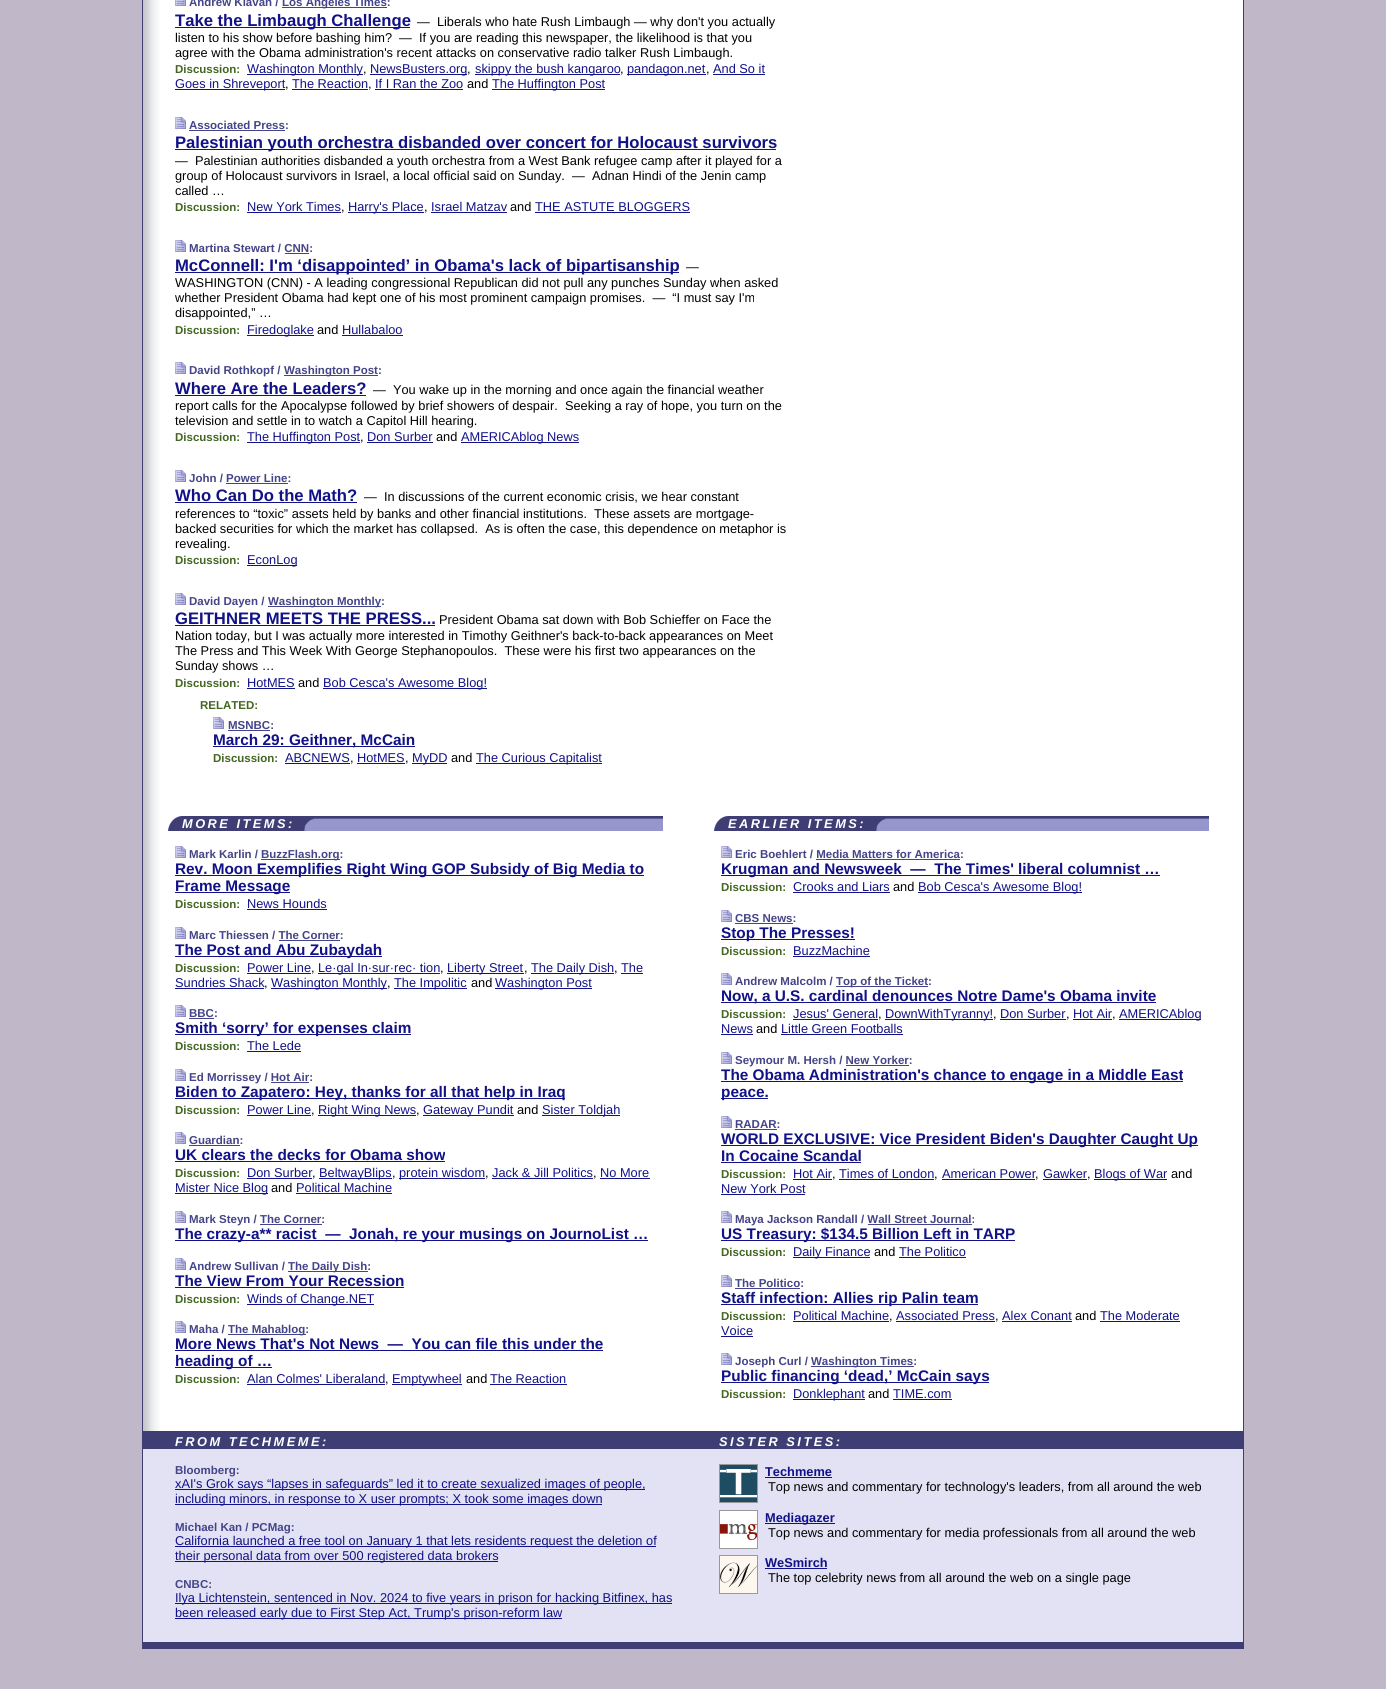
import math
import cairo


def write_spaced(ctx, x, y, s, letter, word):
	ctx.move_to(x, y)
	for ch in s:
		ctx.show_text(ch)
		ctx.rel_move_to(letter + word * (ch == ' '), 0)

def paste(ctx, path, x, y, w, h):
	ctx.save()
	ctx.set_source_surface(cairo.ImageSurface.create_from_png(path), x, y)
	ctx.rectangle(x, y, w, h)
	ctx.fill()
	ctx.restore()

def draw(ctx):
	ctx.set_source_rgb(0.753, 0.722, 0.784)
	ctx.paint()
	ctx.set_source_rgb(1, 1, 1)
	ctx.rectangle(160, 0, 1083, 1431)
	ctx.fill()
	ctx.set_source_rgb(0.243, 0.243, 0.455)
	ctx.rectangle(1243, 0, 1, 1649)
	ctx.rectangle(142, 1642, 1102, 7)
	ctx.rectangle(142, 0, 1, 1649)
	ctx.fill()
	paste(ctx, 'media/1.png', 143, 0, 17, 1431)
	paste(ctx, 'media/2.png', 175, 0, 11, 6)
	ctx.select_font_face('Liberation Sans', cairo.FONT_SLANT_NORMAL, cairo.FONT_WEIGHT_BOLD)
	ctx.set_font_size(11.5)
	ctx.set_source_rgb(0.267, 0.267, 0.533)
	ctx.move_to(189, 6)
	ctx.show_text('Andrew Klavan /')
	ctx.rectangle(282, 7, 105, 1)
	ctx.fill()
	ctx.move_to(282, 6)
	ctx.show_text('Los Angeles Times:')
	ctx.set_source_rgb(0.067, 0.067, 0.533)
	ctx.rectangle(175, 27, 235, 1)
	ctx.fill()
	ctx.set_font_size(16.65)
	ctx.move_to(175, 26)
	ctx.show_text('Take the Limbaugh Challenge')
	ctx.select_font_face('Liberation Sans')
	ctx.set_font_size(12.8)
	ctx.set_source_rgb(0, 0, 0)
	for x, y, s in [
		(417, 26, '—  Liberals who hate Rush Limbaugh — why don\'t you actually'),
		(175, 42, 'listen to his show before bashing him?  —  If you are reading this newspaper, the likelihood is that you'),
		(175, 57, 'agree with the Obama administration\'s recent attacks on conservative radio talker Rush Limbaugh.'),
	]:
		ctx.move_to(x, y)
		ctx.show_text(s)
	ctx.select_font_face('Liberation Sans', cairo.FONT_SLANT_NORMAL, cairo.FONT_WEIGHT_BOLD)
	ctx.set_font_size(11.5)
	ctx.set_source_rgb(0.267, 0.4, 0.133)
	ctx.move_to(175, 73)
	ctx.show_text('Discussion:')
	ctx.set_source_rgb(0.067, 0.067, 0.533)
	ctx.rectangle(247, 74, 116, 1)
	ctx.fill()
	ctx.select_font_face('Liberation Sans')
	ctx.set_font_size(12.8)
	ctx.move_to(247, 73)
	ctx.show_text('Washington Monthly')
	ctx.set_source_rgb(0, 0, 0)
	ctx.move_to(363, 73)
	ctx.show_text(',')
	ctx.set_source_rgb(0.067, 0.067, 0.533)
	ctx.rectangle(370, 74, 97, 1)
	ctx.fill()
	ctx.move_to(370, 73)
	ctx.show_text('NewsBusters.org')
	ctx.set_source_rgb(0, 0, 0)
	ctx.move_to(467, 73)
	ctx.show_text(',')
	ctx.set_source_rgb(0.067, 0.067, 0.533)
	ctx.rectangle(475, 74, 145, 1)
	ctx.fill()
	ctx.move_to(475, 73)
	ctx.show_text('skippy the bush kangaroo')
	ctx.set_source_rgb(0, 0, 0)
	ctx.move_to(620, 73)
	ctx.show_text(',')
	ctx.set_source_rgb(0.067, 0.067, 0.533)
	ctx.rectangle(627, 74, 79, 1)
	ctx.fill()
	ctx.move_to(627, 73)
	ctx.show_text('pandagon.net')
	ctx.set_source_rgb(0, 0, 0)
	ctx.move_to(706, 73)
	ctx.show_text(',')
	ctx.set_source_rgb(0.067, 0.067, 0.533)
	ctx.move_to(713, 73)
	ctx.show_text('And So it')
	ctx.rectangle(713, 74, 52, 1)
	ctx.fill()
	ctx.rectangle(175, 89, 110, 1)
	ctx.fill()
	ctx.move_to(175, 88)
	ctx.show_text('Goes in Shreveport')
	ctx.set_source_rgb(0, 0, 0)
	ctx.move_to(285, 88)
	ctx.show_text(',')
	ctx.set_source_rgb(0.067, 0.067, 0.533)
	ctx.move_to(292, 88)
	ctx.show_text('The Reaction')
	ctx.rectangle(292, 89, 76, 1)
	ctx.fill()
	ctx.set_source_rgb(0, 0, 0)
	ctx.move_to(368, 88)
	ctx.show_text(',')
	ctx.set_source_rgb(0.067, 0.067, 0.533)
	ctx.move_to(375, 88)
	ctx.show_text('If I Ran the Zoo')
	ctx.rectangle(375, 89, 88, 1)
	ctx.fill()
	ctx.set_source_rgb(0, 0, 0)
	ctx.move_to(467, 88)
	ctx.show_text('and')
	ctx.set_source_rgb(0.067, 0.067, 0.533)
	ctx.rectangle(492, 89, 113, 1)
	ctx.fill()
	ctx.move_to(492, 88)
	ctx.show_text('The Huffington Post')
	paste(ctx, 'media/3.png', 175, 117, 11, 12)
	ctx.select_font_face('Liberation Sans', cairo.FONT_SLANT_NORMAL, cairo.FONT_WEIGHT_BOLD)
	ctx.set_font_size(11.5)
	ctx.set_source_rgb(0.267, 0.267, 0.533)
	ctx.move_to(189, 129)
	ctx.show_text('Associated Press:')
	ctx.rectangle(189, 130, 96, 1)
	ctx.fill()
	ctx.set_source_rgb(0.067, 0.067, 0.533)
	ctx.rectangle(175, 149, 601, 1)
	ctx.fill()
	ctx.set_font_size(16.65)
	ctx.move_to(175, 148)
	ctx.show_text('Palestinian youth orchestra disbanded over concert for Holocaust survivors')
	ctx.select_font_face('Liberation Sans')
	ctx.set_font_size(12.8)
	ctx.set_source_rgb(0, 0, 0)
	for x, y, s in [
		(175, 165, '—  Palestinian authorities disbanded a youth orchestra from a West Bank refugee camp after it played for a'),
		(175, 180, 'group of Holocaust survivors in Israel, a local official said on Sunday.  —  Adnan Hindi of the Jenin camp'),
		(175, 195, 'called …'),
	]:
		ctx.move_to(x, y)
		ctx.show_text(s)
	ctx.select_font_face('Liberation Sans', cairo.FONT_SLANT_NORMAL, cairo.FONT_WEIGHT_BOLD)
	ctx.set_font_size(11.5)
	ctx.set_source_rgb(0.267, 0.4, 0.133)
	ctx.move_to(175, 211)
	ctx.show_text('Discussion:')
	ctx.select_font_face('Liberation Sans')
	ctx.set_font_size(12.8)
	ctx.set_source_rgb(0.067, 0.067, 0.533)
	ctx.move_to(247, 211)
	ctx.show_text('New York Times')
	ctx.rectangle(247, 212, 94, 1)
	ctx.fill()
	ctx.set_source_rgb(0, 0, 0)
	ctx.move_to(341, 211)
	ctx.show_text(',')
	ctx.set_source_rgb(0.067, 0.067, 0.533)
	ctx.rectangle(348, 212, 76, 1)
	ctx.fill()
	ctx.move_to(348, 211)
	ctx.show_text('Harry\'s Place')
	ctx.set_source_rgb(0, 0, 0)
	ctx.move_to(424, 211)
	ctx.show_text(',')
	ctx.set_source_rgb(0.067, 0.067, 0.533)
	ctx.move_to(431, 211)
	ctx.show_text('Israel Matzav')
	ctx.rectangle(431, 212, 76, 1)
	ctx.fill()
	ctx.set_source_rgb(0, 0, 0)
	ctx.move_to(510, 211)
	ctx.show_text('and')
	ctx.set_source_rgb(0.067, 0.067, 0.533)
	ctx.move_to(535, 211)
	ctx.show_text('THE ASTUTE BLOGGERS')
	ctx.rectangle(535, 212, 155, 1)
	ctx.fill()
	paste(ctx, 'media/3.png', 175, 240, 11, 12)
	ctx.select_font_face('Liberation Sans', cairo.FONT_SLANT_NORMAL, cairo.FONT_WEIGHT_BOLD)
	ctx.set_font_size(11.5)
	ctx.set_source_rgb(0.267, 0.267, 0.533)
	ctx.move_to(189, 252)
	ctx.show_text('Martina Stewart / CNN:')
	ctx.rectangle(285, 253, 24, 1)
	ctx.fill()
	ctx.set_source_rgb(0.067, 0.067, 0.533)
	ctx.rectangle(175, 272, 504, 1)
	ctx.fill()
	ctx.set_font_size(16.65)
	ctx.move_to(175, 271)
	ctx.show_text('McConnell: I\'m ‘disappointed’ in Obama\'s lack of bipartisanship')
	ctx.select_font_face('Liberation Sans')
	ctx.set_font_size(12.8)
	ctx.set_source_rgb(0, 0, 0)
	for x, y, s in [
		(686, 271, '—'),
		(175, 287, 'WASHINGTON (CNN) - A leading congressional Republican did not pull any punches Sunday when asked'),
		(175, 302, 'whether President Obama had kept one of his most prominent campaign promises.  —  “I must say I\'m'),
		(175, 317, 'disappointed,” …'),
	]:
		ctx.move_to(x, y)
		ctx.show_text(s)
	ctx.select_font_face('Liberation Sans', cairo.FONT_SLANT_NORMAL, cairo.FONT_WEIGHT_BOLD)
	ctx.set_font_size(11.5)
	ctx.set_source_rgb(0.267, 0.4, 0.133)
	ctx.move_to(175, 334)
	ctx.show_text('Discussion:')
	ctx.set_source_rgb(0.067, 0.067, 0.533)
	ctx.rectangle(247, 335, 67, 1)
	ctx.fill()
	ctx.select_font_face('Liberation Sans')
	ctx.set_font_size(12.8)
	ctx.move_to(247, 334)
	ctx.show_text('Firedoglake')
	ctx.set_source_rgb(0, 0, 0)
	ctx.move_to(317, 334)
	ctx.show_text('and')
	ctx.set_source_rgb(0.067, 0.067, 0.533)
	ctx.move_to(342, 334)
	ctx.show_text('Hullabaloo')
	ctx.rectangle(342, 335, 61, 1)
	ctx.fill()
	paste(ctx, 'media/3.png', 175, 362, 11, 12)
	ctx.select_font_face('Liberation Sans', cairo.FONT_SLANT_NORMAL, cairo.FONT_WEIGHT_BOLD)
	ctx.set_font_size(11.5)
	ctx.set_source_rgb(0.267, 0.267, 0.533)
	ctx.move_to(189, 374)
	ctx.show_text('David Rothkopf /')
	ctx.rectangle(284, 375, 94, 1)
	ctx.fill()
	ctx.move_to(284, 374)
	ctx.show_text('Washington Post:')
	ctx.set_font_size(16.65)
	ctx.set_source_rgb(0.067, 0.067, 0.533)
	ctx.move_to(175, 394)
	ctx.show_text('Where Are the Leaders?')
	ctx.rectangle(175, 395, 191, 1)
	ctx.fill()
	ctx.select_font_face('Liberation Sans')
	ctx.set_font_size(12.8)
	ctx.set_source_rgb(0, 0, 0)
	for x, y, s in [
		(373, 394, '—  You wake up in the morning and once again the financial weather'),
		(175, 410, 'report calls for the Apocalypse followed by brief showers of despair.  Seeking a ray of hope, you turn on the'),
		(175, 425, 'television and settle in to watch a Capitol Hill hearing.'),
	]:
		ctx.move_to(x, y)
		ctx.show_text(s)
	ctx.select_font_face('Liberation Sans', cairo.FONT_SLANT_NORMAL, cairo.FONT_WEIGHT_BOLD)
	ctx.set_font_size(11.5)
	ctx.set_source_rgb(0.267, 0.4, 0.133)
	ctx.move_to(175, 441)
	ctx.show_text('Discussion:')
	ctx.set_source_rgb(0.067, 0.067, 0.533)
	ctx.rectangle(247, 442, 113, 1)
	ctx.fill()
	ctx.select_font_face('Liberation Sans')
	ctx.set_font_size(12.8)
	ctx.move_to(247, 441)
	ctx.show_text('The Huffington Post')
	ctx.set_source_rgb(0, 0, 0)
	ctx.move_to(360, 441)
	ctx.show_text(',')
	ctx.set_source_rgb(0.067, 0.067, 0.533)
	ctx.move_to(367, 441)
	ctx.show_text('Don Surber')
	ctx.rectangle(367, 442, 66, 1)
	ctx.fill()
	ctx.set_source_rgb(0, 0, 0)
	ctx.move_to(436, 441)
	ctx.show_text('and')
	ctx.set_source_rgb(0.067, 0.067, 0.533)
	ctx.rectangle(461, 442, 118, 1)
	ctx.fill()
	ctx.move_to(461, 441)
	ctx.show_text('AMERICAblog News')
	paste(ctx, 'media/3.png', 175, 470, 11, 12)
	ctx.select_font_face('Liberation Sans', cairo.FONT_SLANT_NORMAL, cairo.FONT_WEIGHT_BOLD)
	ctx.set_font_size(11.5)
	ctx.set_source_rgb(0.267, 0.267, 0.533)
	ctx.move_to(189, 482)
	ctx.show_text('John / Power Line:')
	ctx.rectangle(226, 483, 62, 1)
	ctx.fill()
	ctx.set_font_size(16.65)
	ctx.set_source_rgb(0.067, 0.067, 0.533)
	ctx.move_to(175, 501)
	ctx.show_text('Who Can Do the Math?')
	ctx.rectangle(175, 502, 182, 1)
	ctx.fill()
	ctx.select_font_face('Liberation Sans')
	ctx.set_font_size(12.8)
	ctx.set_source_rgb(0, 0, 0)
	for x, y, s in [
		(364, 501, '—  In discussions of the current economic crisis, we hear constant'),
		(175, 518, 'references to “toxic” assets held by banks and other financial institutions.  These assets are mortgage-'),
		(175, 533, 'backed securities for which the market has collapsed.  As is often the case, this dependence on metaphor is'),
		(175, 548, 'revealing.'),
	]:
		ctx.move_to(x, y)
		ctx.show_text(s)
	ctx.select_font_face('Liberation Sans', cairo.FONT_SLANT_NORMAL, cairo.FONT_WEIGHT_BOLD)
	ctx.set_font_size(11.5)
	ctx.set_source_rgb(0.267, 0.4, 0.133)
	ctx.move_to(175, 564)
	ctx.show_text('Discussion:')
	ctx.set_source_rgb(0.067, 0.067, 0.533)
	ctx.rectangle(247, 565, 50, 1)
	ctx.fill()
	ctx.select_font_face('Liberation Sans')
	ctx.set_font_size(12.8)
	ctx.move_to(247, 564)
	ctx.show_text('EconLog')
	paste(ctx, 'media/3.png', 175, 593, 11, 12)
	ctx.select_font_face('Liberation Sans', cairo.FONT_SLANT_NORMAL, cairo.FONT_WEIGHT_BOLD)
	ctx.set_font_size(11.5)
	ctx.set_source_rgb(0.267, 0.267, 0.533)
	ctx.move_to(189, 605)
	ctx.show_text('David Dayen /')
	ctx.rectangle(268, 606, 113, 1)
	ctx.fill()
	ctx.move_to(268, 605)
	ctx.show_text('Washington Monthly:')
	ctx.set_font_size(16.65)
	ctx.set_source_rgb(0.067, 0.067, 0.533)
	ctx.move_to(175, 624)
	ctx.show_text('GEITHNER MEETS THE PRESS...')
	ctx.rectangle(175, 625, 260, 1)
	ctx.fill()
	ctx.select_font_face('Liberation Sans')
	ctx.set_font_size(12.8)
	ctx.set_source_rgb(0, 0, 0)
	for x, y, s in [
		(439, 624, 'President Obama sat down with Bob Schieffer on Face the'),
		(175, 640, 'Nation today, but I was actually more interested in Timothy Geithner\'s back-to-back appearances on Meet'),
		(175, 655, 'The Press and This Week With George Stephanopoulos.  These were his first two appearances on the'),
		(175, 670, 'Sunday shows …'),
	]:
		ctx.move_to(x, y)
		ctx.show_text(s)
	ctx.select_font_face('Liberation Sans', cairo.FONT_SLANT_NORMAL, cairo.FONT_WEIGHT_BOLD)
	ctx.set_font_size(11.5)
	ctx.set_source_rgb(0.267, 0.4, 0.133)
	ctx.move_to(175, 687)
	ctx.show_text('Discussion:')
	ctx.select_font_face('Liberation Sans')
	ctx.set_font_size(12.8)
	ctx.set_source_rgb(0.067, 0.067, 0.533)
	ctx.move_to(247, 687)
	ctx.show_text('HotMES')
	ctx.rectangle(247, 688, 48, 1)
	ctx.fill()
	ctx.set_source_rgb(0, 0, 0)
	ctx.move_to(298, 687)
	ctx.show_text('and')
	ctx.set_source_rgb(0.067, 0.067, 0.533)
	ctx.rectangle(323, 688, 164, 1)
	ctx.fill()
	ctx.move_to(323, 687)
	ctx.show_text('Bob Cesca\'s Awesome Blog!')
	ctx.select_font_face('Liberation Sans', cairo.FONT_SLANT_NORMAL, cairo.FONT_WEIGHT_BOLD)
	ctx.set_font_size(11.5)
	ctx.set_source_rgb(0.267, 0.4, 0.133)
	ctx.move_to(200, 709)
	ctx.show_text('RELATED:')
	paste(ctx, 'media/3.png', 213, 717, 11, 12)
	ctx.set_source_rgb(0.267, 0.267, 0.533)
	ctx.move_to(228, 729)
	ctx.show_text('MSNBC:')
	ctx.rectangle(228, 730, 42, 1)
	ctx.fill()
	ctx.set_source_rgb(0.067, 0.067, 0.533)
	ctx.rectangle(213, 746, 202, 1)
	ctx.fill()
	ctx.set_font_size(15.35)
	ctx.move_to(213, 745)
	ctx.show_text('March 29: Geithner, McCain')
	ctx.set_font_size(11.5)
	ctx.set_source_rgb(0.267, 0.4, 0.133)
	ctx.move_to(213, 762)
	ctx.show_text('Discussion:')
	ctx.select_font_face('Liberation Sans')
	ctx.set_font_size(12.8)
	ctx.set_source_rgb(0.067, 0.067, 0.533)
	ctx.move_to(285, 762)
	ctx.show_text('ABCNEWS')
	ctx.rectangle(285, 763, 65, 1)
	ctx.fill()
	ctx.set_source_rgb(0, 0, 0)
	ctx.move_to(350, 762)
	ctx.show_text(',')
	ctx.set_source_rgb(0.067, 0.067, 0.533)
	ctx.move_to(357, 762)
	ctx.show_text('HotMES')
	ctx.rectangle(357, 763, 48, 1)
	ctx.fill()
	ctx.set_source_rgb(0, 0, 0)
	ctx.move_to(405, 762)
	ctx.show_text(',')
	ctx.set_source_rgb(0.067, 0.067, 0.533)
	ctx.rectangle(412, 763, 35, 1)
	ctx.fill()
	ctx.move_to(412, 762)
	ctx.show_text('MyDD')
	ctx.set_source_rgb(0, 0, 0)
	ctx.move_to(451, 762)
	ctx.show_text('and')
	ctx.set_source_rgb(0.067, 0.067, 0.533)
	ctx.rectangle(476, 763, 126, 1)
	ctx.fill()
	ctx.move_to(476, 762)
	ctx.show_text('The Curious Capitalist')
	paste(ctx, 'media/4.png', 295, 816, 368, 15)
	paste(ctx, 'media/5.png', 168, 816, 14, 15)
	ctx.set_source_rgb(0.243, 0.243, 0.455)
	ctx.rectangle(182, 816, 113, 15)
	ctx.fill()
	ctx.select_font_face('Liberation Sans', cairo.FONT_SLANT_ITALIC, cairo.FONT_WEIGHT_BOLD)
	ctx.set_source_rgb(1, 1, 1)
	write_spaced(ctx, 182, 828, 'MORE ITEMS:', 2.5, 0)
	paste(ctx, 'media/6.png', 295, 818, 19, 13)
	paste(ctx, 'media/3.png', 175, 846, 11, 12)
	ctx.select_font_face('Liberation Sans', cairo.FONT_SLANT_NORMAL, cairo.FONT_WEIGHT_BOLD)
	ctx.set_font_size(11.5)
	ctx.set_source_rgb(0.267, 0.267, 0.533)
	ctx.move_to(189, 858)
	ctx.show_text('Mark Karlin /')
	ctx.rectangle(261, 859, 79, 1)
	ctx.fill()
	ctx.move_to(261, 858)
	ctx.show_text('BuzzFlash.org:')
	ctx.set_source_rgb(0.067, 0.067, 0.533)
	ctx.rectangle(175, 875, 469, 1)
	ctx.fill()
	ctx.set_font_size(15.35)
	ctx.move_to(175, 874)
	ctx.show_text('Rev. Moon Exemplifies Right Wing GOP Subsidy of Big Media to')
	ctx.rectangle(175, 892, 115, 1)
	ctx.fill()
	ctx.move_to(175, 891)
	ctx.show_text('Frame Message')
	ctx.set_font_size(11.5)
	ctx.set_source_rgb(0.267, 0.4, 0.133)
	ctx.move_to(175, 908)
	ctx.show_text('Discussion:')
	ctx.select_font_face('Liberation Sans')
	ctx.set_font_size(12.8)
	ctx.set_source_rgb(0.067, 0.067, 0.533)
	ctx.move_to(247, 908)
	ctx.show_text('News Hounds')
	ctx.rectangle(247, 909, 80, 1)
	ctx.fill()
	paste(ctx, 'media/3.png', 175, 927, 11, 12)
	ctx.select_font_face('Liberation Sans', cairo.FONT_SLANT_NORMAL, cairo.FONT_WEIGHT_BOLD)
	ctx.set_font_size(11.5)
	ctx.set_source_rgb(0.267, 0.267, 0.533)
	ctx.move_to(189, 939)
	ctx.show_text('Marc Thiessen / The Corner:')
	ctx.rectangle(279, 940, 61, 1)
	ctx.fill()
	ctx.set_source_rgb(0.067, 0.067, 0.533)
	ctx.rectangle(175, 956, 207, 1)
	ctx.fill()
	ctx.set_font_size(15.35)
	ctx.move_to(175, 955)
	ctx.show_text('The Post and Abu Zubaydah')
	ctx.set_font_size(11.5)
	ctx.set_source_rgb(0.267, 0.4, 0.133)
	ctx.move_to(175, 972)
	ctx.show_text('Discussion:')
	ctx.select_font_face('Liberation Sans')
	ctx.set_font_size(12.8)
	ctx.set_source_rgb(0.067, 0.067, 0.533)
	ctx.move_to(247, 972)
	ctx.show_text('Power Line')
	ctx.rectangle(247, 973, 64, 1)
	ctx.fill()
	ctx.set_source_rgb(0, 0, 0)
	ctx.move_to(311, 972)
	ctx.show_text(',')
	ctx.set_source_rgb(0.067, 0.067, 0.533)
	ctx.rectangle(318, 973, 122, 1)
	ctx.fill()
	ctx.move_to(318, 972)
	ctx.show_text('Le·gal In·sur·rec· tion')
	ctx.set_source_rgb(0, 0, 0)
	ctx.move_to(440, 972)
	ctx.show_text(',')
	ctx.set_source_rgb(0.067, 0.067, 0.533)
	ctx.rectangle(447, 973, 77, 1)
	ctx.fill()
	ctx.move_to(447, 972)
	ctx.show_text('Liberty Street')
	ctx.set_source_rgb(0, 0, 0)
	ctx.move_to(524, 972)
	ctx.show_text(',')
	ctx.set_source_rgb(0.067, 0.067, 0.533)
	ctx.rectangle(531, 973, 83, 1)
	ctx.fill()
	ctx.move_to(531, 972)
	ctx.show_text('The Daily Dish')
	ctx.set_source_rgb(0, 0, 0)
	ctx.move_to(614, 972)
	ctx.show_text(',')
	ctx.set_source_rgb(0.067, 0.067, 0.533)
	ctx.move_to(621, 972)
	ctx.show_text('The')
	ctx.rectangle(621, 973, 22, 1)
	ctx.fill()
	ctx.move_to(175, 987)
	ctx.show_text('Sundries Shack')
	ctx.rectangle(175, 988, 89, 1)
	ctx.fill()
	ctx.set_source_rgb(0, 0, 0)
	ctx.move_to(264, 987)
	ctx.show_text(',')
	ctx.set_source_rgb(0.067, 0.067, 0.533)
	ctx.rectangle(271, 988, 116, 1)
	ctx.fill()
	ctx.move_to(271, 987)
	ctx.show_text('Washington Monthly')
	ctx.set_source_rgb(0, 0, 0)
	ctx.move_to(387, 987)
	ctx.show_text(',')
	ctx.set_source_rgb(0.067, 0.067, 0.533)
	ctx.rectangle(394, 988, 73, 1)
	ctx.fill()
	ctx.move_to(394, 987)
	ctx.show_text('The Impolitic')
	ctx.set_source_rgb(0, 0, 0)
	ctx.move_to(471, 987)
	ctx.show_text('and')
	ctx.set_source_rgb(0.067, 0.067, 0.533)
	ctx.rectangle(495, 988, 97, 1)
	ctx.fill()
	ctx.move_to(495, 987)
	ctx.show_text('Washington Post')
	paste(ctx, 'media/3.png', 175, 1005, 11, 12)
	ctx.select_font_face('Liberation Sans', cairo.FONT_SLANT_NORMAL, cairo.FONT_WEIGHT_BOLD)
	ctx.set_font_size(11.5)
	ctx.set_source_rgb(0.267, 0.267, 0.533)
	ctx.move_to(189, 1017)
	ctx.show_text('BBC:')
	ctx.rectangle(189, 1018, 25, 1)
	ctx.fill()
	ctx.set_source_rgb(0.067, 0.067, 0.533)
	ctx.rectangle(175, 1034, 236, 1)
	ctx.fill()
	ctx.set_font_size(15.35)
	ctx.move_to(175, 1033)
	ctx.show_text('Smith ‘sorry’ for expenses claim')
	ctx.set_font_size(11.5)
	ctx.set_source_rgb(0.267, 0.4, 0.133)
	ctx.move_to(175, 1050)
	ctx.show_text('Discussion:')
	ctx.select_font_face('Liberation Sans')
	ctx.set_font_size(12.8)
	ctx.set_source_rgb(0.067, 0.067, 0.533)
	ctx.move_to(247, 1050)
	ctx.show_text('The Lede')
	ctx.rectangle(247, 1051, 54, 1)
	ctx.fill()
	paste(ctx, 'media/3.png', 175, 1069, 11, 12)
	ctx.select_font_face('Liberation Sans', cairo.FONT_SLANT_NORMAL, cairo.FONT_WEIGHT_BOLD)
	ctx.set_font_size(11.5)
	ctx.set_source_rgb(0.267, 0.267, 0.533)
	ctx.move_to(189, 1081)
	ctx.show_text('Ed Morrissey / Hot Air:')
	ctx.rectangle(271, 1082, 38, 1)
	ctx.fill()
	ctx.set_source_rgb(0.067, 0.067, 0.533)
	ctx.rectangle(175, 1098, 390, 1)
	ctx.fill()
	ctx.set_font_size(15.35)
	ctx.move_to(175, 1097)
	ctx.show_text('Biden to Zapatero: Hey, thanks for all that help in Iraq')
	ctx.set_font_size(11.5)
	ctx.set_source_rgb(0.267, 0.4, 0.133)
	ctx.move_to(175, 1114)
	ctx.show_text('Discussion:')
	ctx.select_font_face('Liberation Sans')
	ctx.set_font_size(12.8)
	ctx.set_source_rgb(0.067, 0.067, 0.533)
	ctx.move_to(247, 1114)
	ctx.show_text('Power Line')
	ctx.rectangle(247, 1115, 64, 1)
	ctx.fill()
	ctx.set_source_rgb(0, 0, 0)
	ctx.move_to(311, 1114)
	ctx.show_text(',')
	ctx.set_source_rgb(0.067, 0.067, 0.533)
	ctx.rectangle(318, 1115, 98, 1)
	ctx.fill()
	ctx.move_to(318, 1114)
	ctx.show_text('Right Wing News')
	ctx.set_source_rgb(0, 0, 0)
	ctx.move_to(416, 1114)
	ctx.show_text(',')
	ctx.set_source_rgb(0.067, 0.067, 0.533)
	ctx.rectangle(423, 1115, 91, 1)
	ctx.fill()
	ctx.move_to(423, 1114)
	ctx.show_text('Gateway Pundit')
	ctx.set_source_rgb(0, 0, 0)
	ctx.move_to(517, 1114)
	ctx.show_text('and')
	ctx.set_source_rgb(0.067, 0.067, 0.533)
	ctx.rectangle(542, 1115, 78, 1)
	ctx.fill()
	ctx.move_to(542, 1114)
	ctx.show_text('Sister Toldjah')
	paste(ctx, 'media/3.png', 175, 1132, 11, 12)
	ctx.select_font_face('Liberation Sans', cairo.FONT_SLANT_NORMAL, cairo.FONT_WEIGHT_BOLD)
	ctx.set_font_size(11.5)
	ctx.set_source_rgb(0.267, 0.267, 0.533)
	ctx.move_to(189, 1144)
	ctx.show_text('Guardian:')
	ctx.rectangle(189, 1145, 51, 1)
	ctx.fill()
	ctx.set_font_size(15.35)
	ctx.set_source_rgb(0.067, 0.067, 0.533)
	ctx.move_to(175, 1160)
	ctx.show_text('UK clears the decks for Obama show')
	ctx.rectangle(175, 1161, 270, 1)
	ctx.fill()
	ctx.set_font_size(11.5)
	ctx.set_source_rgb(0.267, 0.4, 0.133)
	ctx.move_to(175, 1177)
	ctx.show_text('Discussion:')
	ctx.select_font_face('Liberation Sans')
	ctx.set_font_size(12.8)
	ctx.set_source_rgb(0.067, 0.067, 0.533)
	ctx.move_to(247, 1177)
	ctx.show_text('Don Surber')
	ctx.rectangle(247, 1178, 65, 1)
	ctx.fill()
	ctx.set_source_rgb(0, 0, 0)
	ctx.move_to(312, 1177)
	ctx.show_text(',')
	ctx.set_source_rgb(0.067, 0.067, 0.533)
	ctx.rectangle(319, 1178, 73, 1)
	ctx.fill()
	ctx.move_to(319, 1177)
	ctx.show_text('BeltwayBlips')
	ctx.set_source_rgb(0, 0, 0)
	ctx.move_to(392, 1177)
	ctx.show_text(',')
	ctx.set_source_rgb(0.067, 0.067, 0.533)
	ctx.rectangle(399, 1178, 86, 1)
	ctx.fill()
	ctx.move_to(399, 1177)
	ctx.show_text('protein wisdom')
	ctx.set_source_rgb(0, 0, 0)
	ctx.move_to(485, 1177)
	ctx.show_text(',')
	ctx.set_source_rgb(0.067, 0.067, 0.533)
	ctx.move_to(492, 1177)
	ctx.show_text('Jack & Jill Politics')
	ctx.rectangle(492, 1178, 101, 1)
	ctx.fill()
	ctx.set_source_rgb(0, 0, 0)
	ctx.move_to(593, 1177)
	ctx.show_text(',')
	ctx.set_source_rgb(0.067, 0.067, 0.533)
	ctx.move_to(600, 1177)
	ctx.show_text('No More')
	ctx.rectangle(600, 1178, 50, 1)
	ctx.fill()
	ctx.rectangle(175, 1193, 93, 1)
	ctx.fill()
	ctx.move_to(175, 1192)
	ctx.show_text('Mister Nice Blog')
	ctx.set_source_rgb(0, 0, 0)
	ctx.move_to(271, 1192)
	ctx.show_text('and')
	ctx.set_source_rgb(0.067, 0.067, 0.533)
	ctx.move_to(296, 1192)
	ctx.show_text('Political Machine')
	ctx.rectangle(296, 1193, 96, 1)
	ctx.fill()
	paste(ctx, 'media/3.png', 175, 1211, 11, 12)
	ctx.select_font_face('Liberation Sans', cairo.FONT_SLANT_NORMAL, cairo.FONT_WEIGHT_BOLD)
	ctx.set_font_size(11.5)
	ctx.set_source_rgb(0.267, 0.267, 0.533)
	ctx.move_to(189, 1223)
	ctx.show_text('Mark Steyn / The Corner:')
	ctx.rectangle(260, 1224, 62, 1)
	ctx.fill()
	ctx.set_source_rgb(0.067, 0.067, 0.533)
	ctx.rectangle(175, 1240, 473, 1)
	ctx.fill()
	ctx.set_font_size(15.35)
	ctx.move_to(175, 1239)
	ctx.show_text('The crazy-a** racist  —  Jonah, re your musings on JournoList …')
	paste(ctx, 'media/3.png', 175, 1258, 11, 12)
	ctx.set_font_size(11.5)
	ctx.set_source_rgb(0.267, 0.267, 0.533)
	ctx.move_to(189, 1270)
	ctx.show_text('Andrew Sullivan /')
	ctx.rectangle(288, 1271, 80, 1)
	ctx.fill()
	ctx.move_to(288, 1270)
	ctx.show_text('The Daily Dish:')
	ctx.set_font_size(15.35)
	ctx.set_source_rgb(0.067, 0.067, 0.533)
	ctx.move_to(175, 1286)
	ctx.show_text('The View From Your Recession')
	ctx.rectangle(175, 1287, 229, 1)
	ctx.fill()
	ctx.set_font_size(11.5)
	ctx.set_source_rgb(0.267, 0.4, 0.133)
	ctx.move_to(175, 1303)
	ctx.show_text('Discussion:')
	ctx.set_source_rgb(0.067, 0.067, 0.533)
	ctx.rectangle(247, 1304, 127, 1)
	ctx.fill()
	ctx.select_font_face('Liberation Sans')
	ctx.set_font_size(12.8)
	ctx.move_to(247, 1303)
	ctx.show_text('Winds of Change.NET')
	paste(ctx, 'media/3.png', 175, 1321, 11, 12)
	ctx.select_font_face('Liberation Sans', cairo.FONT_SLANT_NORMAL, cairo.FONT_WEIGHT_BOLD)
	ctx.set_font_size(11.5)
	ctx.set_source_rgb(0.267, 0.267, 0.533)
	ctx.move_to(189, 1333)
	ctx.show_text('Maha /')
	ctx.rectangle(228, 1334, 78, 1)
	ctx.fill()
	ctx.move_to(228, 1333)
	ctx.show_text('The Mahablog:')
	ctx.set_font_size(15.35)
	ctx.set_source_rgb(0.067, 0.067, 0.533)
	ctx.move_to(175, 1349)
	ctx.show_text('More News That\'s Not News  —  You can file this under the')
	ctx.rectangle(175, 1350, 428, 1)
	ctx.fill()
	ctx.rectangle(175, 1367, 97, 1)
	ctx.fill()
	ctx.move_to(175, 1366)
	ctx.show_text('heading of …')
	ctx.set_font_size(11.5)
	ctx.set_source_rgb(0.267, 0.4, 0.133)
	ctx.move_to(175, 1383)
	ctx.show_text('Discussion:')
	ctx.select_font_face('Liberation Sans')
	ctx.set_font_size(12.8)
	ctx.set_source_rgb(0.067, 0.067, 0.533)
	ctx.move_to(247, 1383)
	ctx.show_text('Alan Colmes\' Liberaland')
	ctx.rectangle(247, 1384, 138, 1)
	ctx.fill()
	ctx.set_source_rgb(0, 0, 0)
	ctx.move_to(385, 1383)
	ctx.show_text(',')
	ctx.set_source_rgb(0.067, 0.067, 0.533)
	ctx.rectangle(392, 1384, 70, 1)
	ctx.fill()
	ctx.move_to(392, 1383)
	ctx.show_text('Emptywheel')
	ctx.set_source_rgb(0, 0, 0)
	ctx.move_to(466, 1383)
	ctx.show_text('and')
	ctx.set_source_rgb(0.067, 0.067, 0.533)
	ctx.move_to(490, 1383)
	ctx.show_text('The Reaction')
	ctx.rectangle(490, 1384, 77, 1)
	ctx.fill()
	paste(ctx, 'media/7.png', 867, 816, 342, 15)
	paste(ctx, 'media/5.png', 714, 816, 14, 15)
	ctx.set_source_rgb(0.243, 0.243, 0.455)
	ctx.rectangle(728, 816, 139, 15)
	ctx.fill()
	ctx.select_font_face('Liberation Sans', cairo.FONT_SLANT_ITALIC, cairo.FONT_WEIGHT_BOLD)
	ctx.set_source_rgb(1, 1, 1)
	write_spaced(ctx, 728, 828, 'EARLIER ITEMS:', 2.5, 0)
	paste(ctx, 'media/6.png', 867, 818, 19, 13)
	paste(ctx, 'media/3.png', 721, 846, 11, 12)
	ctx.select_font_face('Liberation Sans', cairo.FONT_SLANT_NORMAL, cairo.FONT_WEIGHT_BOLD)
	ctx.set_font_size(11.5)
	ctx.set_source_rgb(0.267, 0.267, 0.533)
	ctx.move_to(735, 858)
	ctx.show_text('Eric Boehlert / Media Matters for America:')
	ctx.rectangle(816, 859, 144, 1)
	ctx.fill()
	ctx.set_source_rgb(0.067, 0.067, 0.533)
	ctx.rectangle(721, 875, 439, 1)
	ctx.fill()
	ctx.set_font_size(15.35)
	ctx.move_to(721, 874)
	ctx.show_text('Krugman and Newsweek  —  The Times\' liberal columnist …')
	ctx.set_font_size(11.5)
	ctx.set_source_rgb(0.267, 0.4, 0.133)
	ctx.move_to(721, 891)
	ctx.show_text('Discussion:')
	ctx.select_font_face('Liberation Sans')
	ctx.set_font_size(12.8)
	ctx.set_source_rgb(0.067, 0.067, 0.533)
	ctx.move_to(793, 891)
	ctx.show_text('Crooks and Liars')
	ctx.rectangle(793, 892, 97, 1)
	ctx.fill()
	ctx.set_source_rgb(0, 0, 0)
	ctx.move_to(893, 891)
	ctx.show_text('and')
	ctx.set_source_rgb(0.067, 0.067, 0.533)
	ctx.rectangle(918, 892, 164, 1)
	ctx.fill()
	ctx.move_to(918, 891)
	ctx.show_text('Bob Cesca\'s Awesome Blog!')
	paste(ctx, 'media/3.png', 721, 910, 11, 12)
	ctx.select_font_face('Liberation Sans', cairo.FONT_SLANT_NORMAL, cairo.FONT_WEIGHT_BOLD)
	ctx.set_font_size(11.5)
	ctx.set_source_rgb(0.267, 0.267, 0.533)
	ctx.move_to(735, 922)
	ctx.show_text('CBS News:')
	ctx.rectangle(735, 923, 58, 1)
	ctx.fill()
	ctx.set_source_rgb(0.067, 0.067, 0.533)
	ctx.rectangle(721, 939, 134, 1)
	ctx.fill()
	ctx.set_font_size(15.35)
	ctx.move_to(721, 938)
	ctx.show_text('Stop The Presses!')
	ctx.set_font_size(11.5)
	ctx.set_source_rgb(0.267, 0.4, 0.133)
	ctx.move_to(721, 955)
	ctx.show_text('Discussion:')
	ctx.select_font_face('Liberation Sans')
	ctx.set_font_size(12.8)
	ctx.set_source_rgb(0.067, 0.067, 0.533)
	ctx.move_to(793, 955)
	ctx.show_text('BuzzMachine')
	ctx.rectangle(793, 956, 77, 1)
	ctx.fill()
	paste(ctx, 'media/3.png', 721, 973, 11, 12)
	ctx.select_font_face('Liberation Sans', cairo.FONT_SLANT_NORMAL, cairo.FONT_WEIGHT_BOLD)
	ctx.set_font_size(11.5)
	ctx.set_source_rgb(0.267, 0.267, 0.533)
	ctx.move_to(735, 985)
	ctx.show_text('Andrew Malcolm /')
	ctx.rectangle(836, 986, 92, 1)
	ctx.fill()
	ctx.move_to(836, 985)
	ctx.show_text('Top of the Ticket:')
	ctx.set_source_rgb(0.067, 0.067, 0.533)
	ctx.rectangle(721, 1002, 435, 1)
	ctx.fill()
	ctx.set_font_size(15.35)
	ctx.move_to(721, 1001)
	ctx.show_text('Now, a U.S. cardinal denounces Notre Dame\'s Obama invite')
	ctx.set_font_size(11.5)
	ctx.set_source_rgb(0.267, 0.4, 0.133)
	ctx.move_to(721, 1018)
	ctx.show_text('Discussion:')
	ctx.select_font_face('Liberation Sans')
	ctx.set_font_size(12.8)
	ctx.set_source_rgb(0.067, 0.067, 0.533)
	ctx.move_to(793, 1018)
	ctx.show_text('Jesus\' General')
	ctx.rectangle(793, 1019, 85, 1)
	ctx.fill()
	ctx.set_source_rgb(0, 0, 0)
	ctx.move_to(878, 1018)
	ctx.show_text(',')
	ctx.set_source_rgb(0.067, 0.067, 0.533)
	ctx.rectangle(885, 1019, 108, 1)
	ctx.fill()
	ctx.move_to(885, 1018)
	ctx.show_text('DownWithTyranny!')
	ctx.set_source_rgb(0, 0, 0)
	ctx.move_to(993, 1018)
	ctx.show_text(',')
	ctx.set_source_rgb(0.067, 0.067, 0.533)
	ctx.move_to(1000, 1018)
	ctx.show_text('Don Surber')
	ctx.rectangle(1000, 1019, 66, 1)
	ctx.fill()
	ctx.set_source_rgb(0, 0, 0)
	ctx.move_to(1066, 1018)
	ctx.show_text(',')
	ctx.set_source_rgb(0.067, 0.067, 0.533)
	ctx.move_to(1073, 1018)
	ctx.show_text('Hot Air')
	ctx.rectangle(1073, 1019, 39, 1)
	ctx.fill()
	ctx.set_source_rgb(0, 0, 0)
	ctx.move_to(1112, 1018)
	ctx.show_text(',')
	ctx.set_source_rgb(0.067, 0.067, 0.533)
	ctx.rectangle(1119, 1019, 82, 1)
	ctx.fill()
	ctx.move_to(1119, 1018)
	ctx.show_text('AMERICAblog')
	ctx.move_to(721, 1033)
	ctx.show_text('News')
	ctx.rectangle(721, 1034, 32, 1)
	ctx.fill()
	ctx.set_source_rgb(0, 0, 0)
	ctx.move_to(756, 1033)
	ctx.show_text('and')
	ctx.set_source_rgb(0.067, 0.067, 0.533)
	ctx.move_to(781, 1033)
	ctx.show_text('Little Green Footballs')
	ctx.rectangle(781, 1034, 122, 1)
	ctx.fill()
	paste(ctx, 'media/3.png', 721, 1052, 11, 12)
	ctx.select_font_face('Liberation Sans', cairo.FONT_SLANT_NORMAL, cairo.FONT_WEIGHT_BOLD)
	ctx.set_font_size(11.5)
	ctx.set_source_rgb(0.267, 0.267, 0.533)
	ctx.move_to(735, 1064)
	ctx.show_text('Seymour M. Hersh / New Yorker:')
	ctx.rectangle(846, 1065, 63, 1)
	ctx.fill()
	ctx.set_source_rgb(0.067, 0.067, 0.533)
	ctx.rectangle(721, 1081, 462, 1)
	ctx.fill()
	ctx.set_font_size(15.35)
	ctx.move_to(721, 1080)
	ctx.show_text('The Obama Administration\'s chance to engage in a Middle East')
	ctx.rectangle(721, 1098, 47, 1)
	ctx.fill()
	ctx.move_to(721, 1097)
	ctx.show_text('peace.')
	paste(ctx, 'media/3.png', 721, 1116, 11, 12)
	ctx.set_font_size(11.5)
	ctx.set_source_rgb(0.267, 0.267, 0.533)
	ctx.move_to(735, 1128)
	ctx.show_text('RADAR:')
	ctx.rectangle(735, 1129, 42, 1)
	ctx.fill()
	ctx.set_source_rgb(0.067, 0.067, 0.533)
	ctx.rectangle(721, 1145, 477, 1)
	ctx.fill()
	ctx.set_font_size(15.35)
	ctx.move_to(721, 1144)
	ctx.show_text('WORLD EXCLUSIVE: Vice President Biden\'s Daughter Caught Up')
	ctx.move_to(721, 1161)
	ctx.show_text('In Cocaine Scandal')
	ctx.rectangle(721, 1162, 140, 1)
	ctx.fill()
	ctx.set_font_size(11.5)
	ctx.set_source_rgb(0.267, 0.4, 0.133)
	ctx.move_to(721, 1178)
	ctx.show_text('Discussion:')
	ctx.select_font_face('Liberation Sans')
	ctx.set_font_size(12.8)
	ctx.set_source_rgb(0.067, 0.067, 0.533)
	ctx.move_to(793, 1178)
	ctx.show_text('Hot Air')
	ctx.rectangle(793, 1179, 39, 1)
	ctx.fill()
	ctx.set_source_rgb(0, 0, 0)
	ctx.move_to(832, 1178)
	ctx.show_text(',')
	ctx.set_source_rgb(0.067, 0.067, 0.533)
	ctx.move_to(839, 1178)
	ctx.show_text('Times of London')
	ctx.rectangle(839, 1179, 95, 1)
	ctx.fill()
	ctx.set_source_rgb(0, 0, 0)
	ctx.move_to(934, 1178)
	ctx.show_text(',')
	ctx.set_source_rgb(0.067, 0.067, 0.533)
	ctx.move_to(942, 1178)
	ctx.show_text('American Power')
	ctx.rectangle(942, 1179, 93, 1)
	ctx.fill()
	ctx.set_source_rgb(0, 0, 0)
	ctx.move_to(1035, 1178)
	ctx.show_text(',')
	ctx.set_source_rgb(0.067, 0.067, 0.533)
	ctx.move_to(1043, 1178)
	ctx.show_text('Gawker')
	ctx.rectangle(1043, 1179, 44, 1)
	ctx.fill()
	ctx.set_source_rgb(0, 0, 0)
	ctx.move_to(1087, 1178)
	ctx.show_text(',')
	ctx.set_source_rgb(0.067, 0.067, 0.533)
	ctx.rectangle(1094, 1179, 73, 1)
	ctx.fill()
	ctx.move_to(1094, 1178)
	ctx.show_text('Blogs of War')
	ctx.set_source_rgb(0, 0, 0)
	ctx.move_to(1171, 1178)
	ctx.show_text('and')
	ctx.set_source_rgb(0.067, 0.067, 0.533)
	ctx.move_to(721, 1193)
	ctx.show_text('New York Post')
	ctx.rectangle(721, 1194, 84, 1)
	ctx.fill()
	paste(ctx, 'media/3.png', 721, 1211, 11, 12)
	ctx.select_font_face('Liberation Sans', cairo.FONT_SLANT_NORMAL, cairo.FONT_WEIGHT_BOLD)
	ctx.set_font_size(11.5)
	ctx.set_source_rgb(0.267, 0.267, 0.533)
	ctx.move_to(735, 1223)
	ctx.show_text('Maya Jackson Randall / Wall Street Journal:')
	ctx.rectangle(868, 1224, 104, 1)
	ctx.fill()
	ctx.set_source_rgb(0.067, 0.067, 0.533)
	ctx.rectangle(721, 1240, 294, 1)
	ctx.fill()
	ctx.set_font_size(15.35)
	ctx.move_to(721, 1239)
	ctx.show_text('US Treasury: $134.5 Billion Left in TARP')
	ctx.set_font_size(11.5)
	ctx.set_source_rgb(0.267, 0.4, 0.133)
	ctx.move_to(721, 1256)
	ctx.show_text('Discussion:')
	ctx.set_source_rgb(0.067, 0.067, 0.533)
	ctx.rectangle(793, 1257, 77, 1)
	ctx.fill()
	ctx.select_font_face('Liberation Sans')
	ctx.set_font_size(12.8)
	ctx.move_to(793, 1256)
	ctx.show_text('Daily Finance')
	ctx.set_source_rgb(0, 0, 0)
	ctx.move_to(874, 1256)
	ctx.show_text('and')
	ctx.set_source_rgb(0.067, 0.067, 0.533)
	ctx.move_to(899, 1256)
	ctx.show_text('The Politico')
	ctx.rectangle(899, 1257, 67, 1)
	ctx.fill()
	paste(ctx, 'media/3.png', 721, 1275, 11, 12)
	ctx.select_font_face('Liberation Sans', cairo.FONT_SLANT_NORMAL, cairo.FONT_WEIGHT_BOLD)
	ctx.set_font_size(11.5)
	ctx.set_source_rgb(0.267, 0.267, 0.533)
	ctx.move_to(735, 1287)
	ctx.show_text('The Politico:')
	ctx.rectangle(735, 1288, 65, 1)
	ctx.fill()
	ctx.set_source_rgb(0.067, 0.067, 0.533)
	ctx.rectangle(721, 1304, 257, 1)
	ctx.fill()
	ctx.set_font_size(15.35)
	ctx.move_to(721, 1303)
	ctx.show_text('Staff infection: Allies rip Palin team')
	ctx.set_font_size(11.5)
	ctx.set_source_rgb(0.267, 0.4, 0.133)
	ctx.move_to(721, 1320)
	ctx.show_text('Discussion:')
	ctx.select_font_face('Liberation Sans')
	ctx.set_font_size(12.8)
	ctx.set_source_rgb(0.067, 0.067, 0.533)
	ctx.move_to(793, 1320)
	ctx.show_text('Political Machine')
	ctx.rectangle(793, 1321, 96, 1)
	ctx.fill()
	ctx.set_source_rgb(0, 0, 0)
	ctx.move_to(889, 1320)
	ctx.show_text(',')
	ctx.set_source_rgb(0.067, 0.067, 0.533)
	ctx.move_to(896, 1320)
	ctx.show_text('Associated Press')
	ctx.rectangle(896, 1321, 99, 1)
	ctx.fill()
	ctx.set_source_rgb(0, 0, 0)
	ctx.move_to(995, 1320)
	ctx.show_text(',')
	ctx.set_source_rgb(0.067, 0.067, 0.533)
	ctx.move_to(1002, 1320)
	ctx.show_text('Alex Conant')
	ctx.rectangle(1002, 1321, 70, 1)
	ctx.fill()
	ctx.set_source_rgb(0, 0, 0)
	ctx.move_to(1075, 1320)
	ctx.show_text('and')
	ctx.set_source_rgb(0.067, 0.067, 0.533)
	ctx.move_to(1100, 1320)
	ctx.show_text('The Moderate')
	ctx.rectangle(1100, 1321, 80, 1)
	ctx.fill()
	ctx.move_to(721, 1335)
	ctx.show_text('Voice')
	ctx.rectangle(721, 1336, 32, 1)
	ctx.fill()
	paste(ctx, 'media/3.png', 721, 1353, 11, 12)
	ctx.select_font_face('Liberation Sans', cairo.FONT_SLANT_NORMAL, cairo.FONT_WEIGHT_BOLD)
	ctx.set_font_size(11.5)
	ctx.set_source_rgb(0.267, 0.267, 0.533)
	ctx.move_to(735, 1365)
	ctx.show_text('Joseph Curl /')
	ctx.rectangle(811, 1366, 103, 1)
	ctx.fill()
	ctx.move_to(811, 1365)
	ctx.show_text('Washington Times:')
	ctx.set_source_rgb(0.067, 0.067, 0.533)
	ctx.rectangle(721, 1382, 268, 1)
	ctx.fill()
	ctx.set_font_size(15.35)
	ctx.move_to(721, 1381)
	ctx.show_text('Public financing ‘dead,’ McCain says')
	ctx.set_font_size(11.5)
	ctx.set_source_rgb(0.267, 0.4, 0.133)
	ctx.move_to(721, 1398)
	ctx.show_text('Discussion:')
	ctx.set_source_rgb(0.067, 0.067, 0.533)
	ctx.rectangle(793, 1399, 72, 1)
	ctx.fill()
	ctx.select_font_face('Liberation Sans')
	ctx.set_font_size(12.8)
	ctx.move_to(793, 1398)
	ctx.show_text('Donklephant')
	ctx.set_source_rgb(0, 0, 0)
	ctx.move_to(868, 1398)
	ctx.show_text('and')
	ctx.set_source_rgb(0.067, 0.067, 0.533)
	ctx.move_to(893, 1398)
	ctx.show_text('TIME.com')
	ctx.rectangle(893, 1399, 59, 1)
	ctx.fill()
	ctx.set_source_rgb(0.886, 0.886, 0.957)
	ctx.rectangle(143, 1449, 1100, 193)
	ctx.fill()
	ctx.set_source_rgb(0.243, 0.243, 0.455)
	ctx.rectangle(143, 1431, 1100, 3)
	ctx.rectangle(143, 1434, 1100, 15)
	ctx.fill()
	ctx.select_font_face('Liberation Sans', cairo.FONT_SLANT_ITALIC, cairo.FONT_WEIGHT_BOLD)
	ctx.set_source_rgb(1, 1, 1)
	write_spaced(ctx, 175, 1446, 'FROM TECHMEME:', 2.5, 0)
	ctx.select_font_face('Liberation Sans', cairo.FONT_SLANT_NORMAL, cairo.FONT_WEIGHT_BOLD)
	ctx.set_font_size(11.5)
	ctx.set_source_rgb(0.267, 0.267, 0.533)
	ctx.move_to(175, 1474)
	ctx.show_text('Bloomberg:')
	ctx.set_source_rgb(0.067, 0.067, 0.533)
	ctx.rectangle(175, 1489, 470, 1)
	ctx.fill()
	ctx.select_font_face('Liberation Sans')
	ctx.set_font_size(12.8)
	ctx.move_to(175, 1488)
	ctx.show_text('xAI\'s Grok says “lapses in safeguards” led it to create sexualized images of people,')
	ctx.rectangle(175, 1504, 427, 1)
	ctx.fill()
	ctx.move_to(175, 1503)
	ctx.show_text('including minors, in response to X user prompts; X took some images down')
	ctx.select_font_face('Liberation Sans', cairo.FONT_SLANT_NORMAL, cairo.FONT_WEIGHT_BOLD)
	ctx.set_font_size(11.5)
	ctx.set_source_rgb(0.267, 0.267, 0.533)
	ctx.move_to(175, 1531)
	ctx.show_text('Michael Kan / PCMag:')
	ctx.set_source_rgb(0.067, 0.067, 0.533)
	ctx.rectangle(175, 1546, 481, 1)
	ctx.fill()
	ctx.select_font_face('Liberation Sans')
	ctx.set_font_size(12.8)
	ctx.move_to(175, 1545)
	ctx.show_text('California launched a free tool on January 1 that lets residents request the deletion of')
	ctx.rectangle(175, 1561, 323, 1)
	ctx.fill()
	ctx.move_to(175, 1560)
	ctx.show_text('their personal data from over 500 registered data brokers')
	ctx.select_font_face('Liberation Sans', cairo.FONT_SLANT_NORMAL, cairo.FONT_WEIGHT_BOLD)
	ctx.set_font_size(11.5)
	ctx.set_source_rgb(0.267, 0.267, 0.533)
	ctx.move_to(175, 1588)
	ctx.show_text('CNBC:')
	ctx.set_source_rgb(0.067, 0.067, 0.533)
	ctx.rectangle(175, 1603, 497, 1)
	ctx.fill()
	ctx.select_font_face('Liberation Sans')
	ctx.set_font_size(12.8)
	ctx.move_to(175, 1602)
	ctx.show_text('Ilya Lichtenstein, sentenced in Nov. 2024 to five years in prison for hacking Bitfinex, has')
	ctx.rectangle(175, 1618, 387, 1)
	ctx.fill()
	ctx.move_to(175, 1617)
	ctx.show_text('been released early due to First Step Act, Trump\'s prison-reform law')
	ctx.select_font_face('Liberation Sans', cairo.FONT_SLANT_ITALIC, cairo.FONT_WEIGHT_BOLD)
	ctx.set_source_rgb(1, 1, 1)
	write_spaced(ctx, 719, 1446, 'SISTER SITES:', 2.5, 0)
	ctx.rectangle(719.5, 1464.5, 38, 38)
	ctx.set_source_rgb(0.6, 0.6, 0.6)
	ctx.set_line_width(1)
	ctx.stroke()
	paste(ctx, 'media/8.png', 720, 1465, 37, 37)
	ctx.select_font_face('Liberation Sans', cairo.FONT_SLANT_NORMAL, cairo.FONT_WEIGHT_BOLD)
	ctx.set_source_rgb(0.067, 0.067, 0.533)
	ctx.move_to(765, 1476)
	ctx.show_text('Techmeme')
	ctx.rectangle(765, 1477, 67, 1)
	ctx.fill()
	ctx.select_font_face('Liberation Sans')
	ctx.set_source_rgb(0, 0, 0)
	ctx.move_to(768, 1491)
	ctx.show_text('Top news and commentary for technology\'s leaders, from all around the web')
	ctx.rectangle(719.5, 1510.5, 38, 38)
	ctx.set_source_rgb(0.6, 0.6, 0.6)
	ctx.stroke()
	paste(ctx, 'media/9.png', 720, 1511, 37, 37)
	ctx.set_source_rgb(0.067, 0.067, 0.533)
	ctx.rectangle(765, 1523, 70, 1)
	ctx.fill()
	ctx.select_font_face('Liberation Sans', cairo.FONT_SLANT_NORMAL, cairo.FONT_WEIGHT_BOLD)
	ctx.move_to(765, 1522)
	ctx.show_text('Mediagazer')
	ctx.select_font_face('Liberation Sans')
	ctx.set_source_rgb(0, 0, 0)
	ctx.move_to(768, 1537)
	ctx.show_text('Top news and commentary for media professionals from all around the web')
	ctx.rectangle(719.5, 1555.5, 38, 38)
	ctx.set_source_rgb(0.6, 0.6, 0.6)
	ctx.stroke()
	paste(ctx, 'media/10.png', 720, 1556, 37, 37)
	ctx.select_font_face('Liberation Sans', cairo.FONT_SLANT_NORMAL, cairo.FONT_WEIGHT_BOLD)
	ctx.set_source_rgb(0.067, 0.067, 0.533)
	ctx.move_to(765, 1567)
	ctx.show_text('WeSmirch')
	ctx.rectangle(765, 1568, 62, 1)
	ctx.fill()
	ctx.select_font_face('Liberation Sans')
	ctx.set_source_rgb(0, 0, 0)
	ctx.move_to(768, 1582)
	ctx.show_text('The top celebrity news from all around the web on a single page')


surface = cairo.ImageSurface(cairo.FORMAT_RGB24, 1386, 1689)
ctx = cairo.Context(surface)
options = cairo.FontOptions()
options.set_hint_metrics(cairo.HINT_METRICS_OFF)
options.set_hint_style(cairo.HINT_STYLE_NONE)
ctx.set_font_options(options)
ctx.set_miter_limit(4)
draw(ctx)
surface.write_to_png('image.png')
